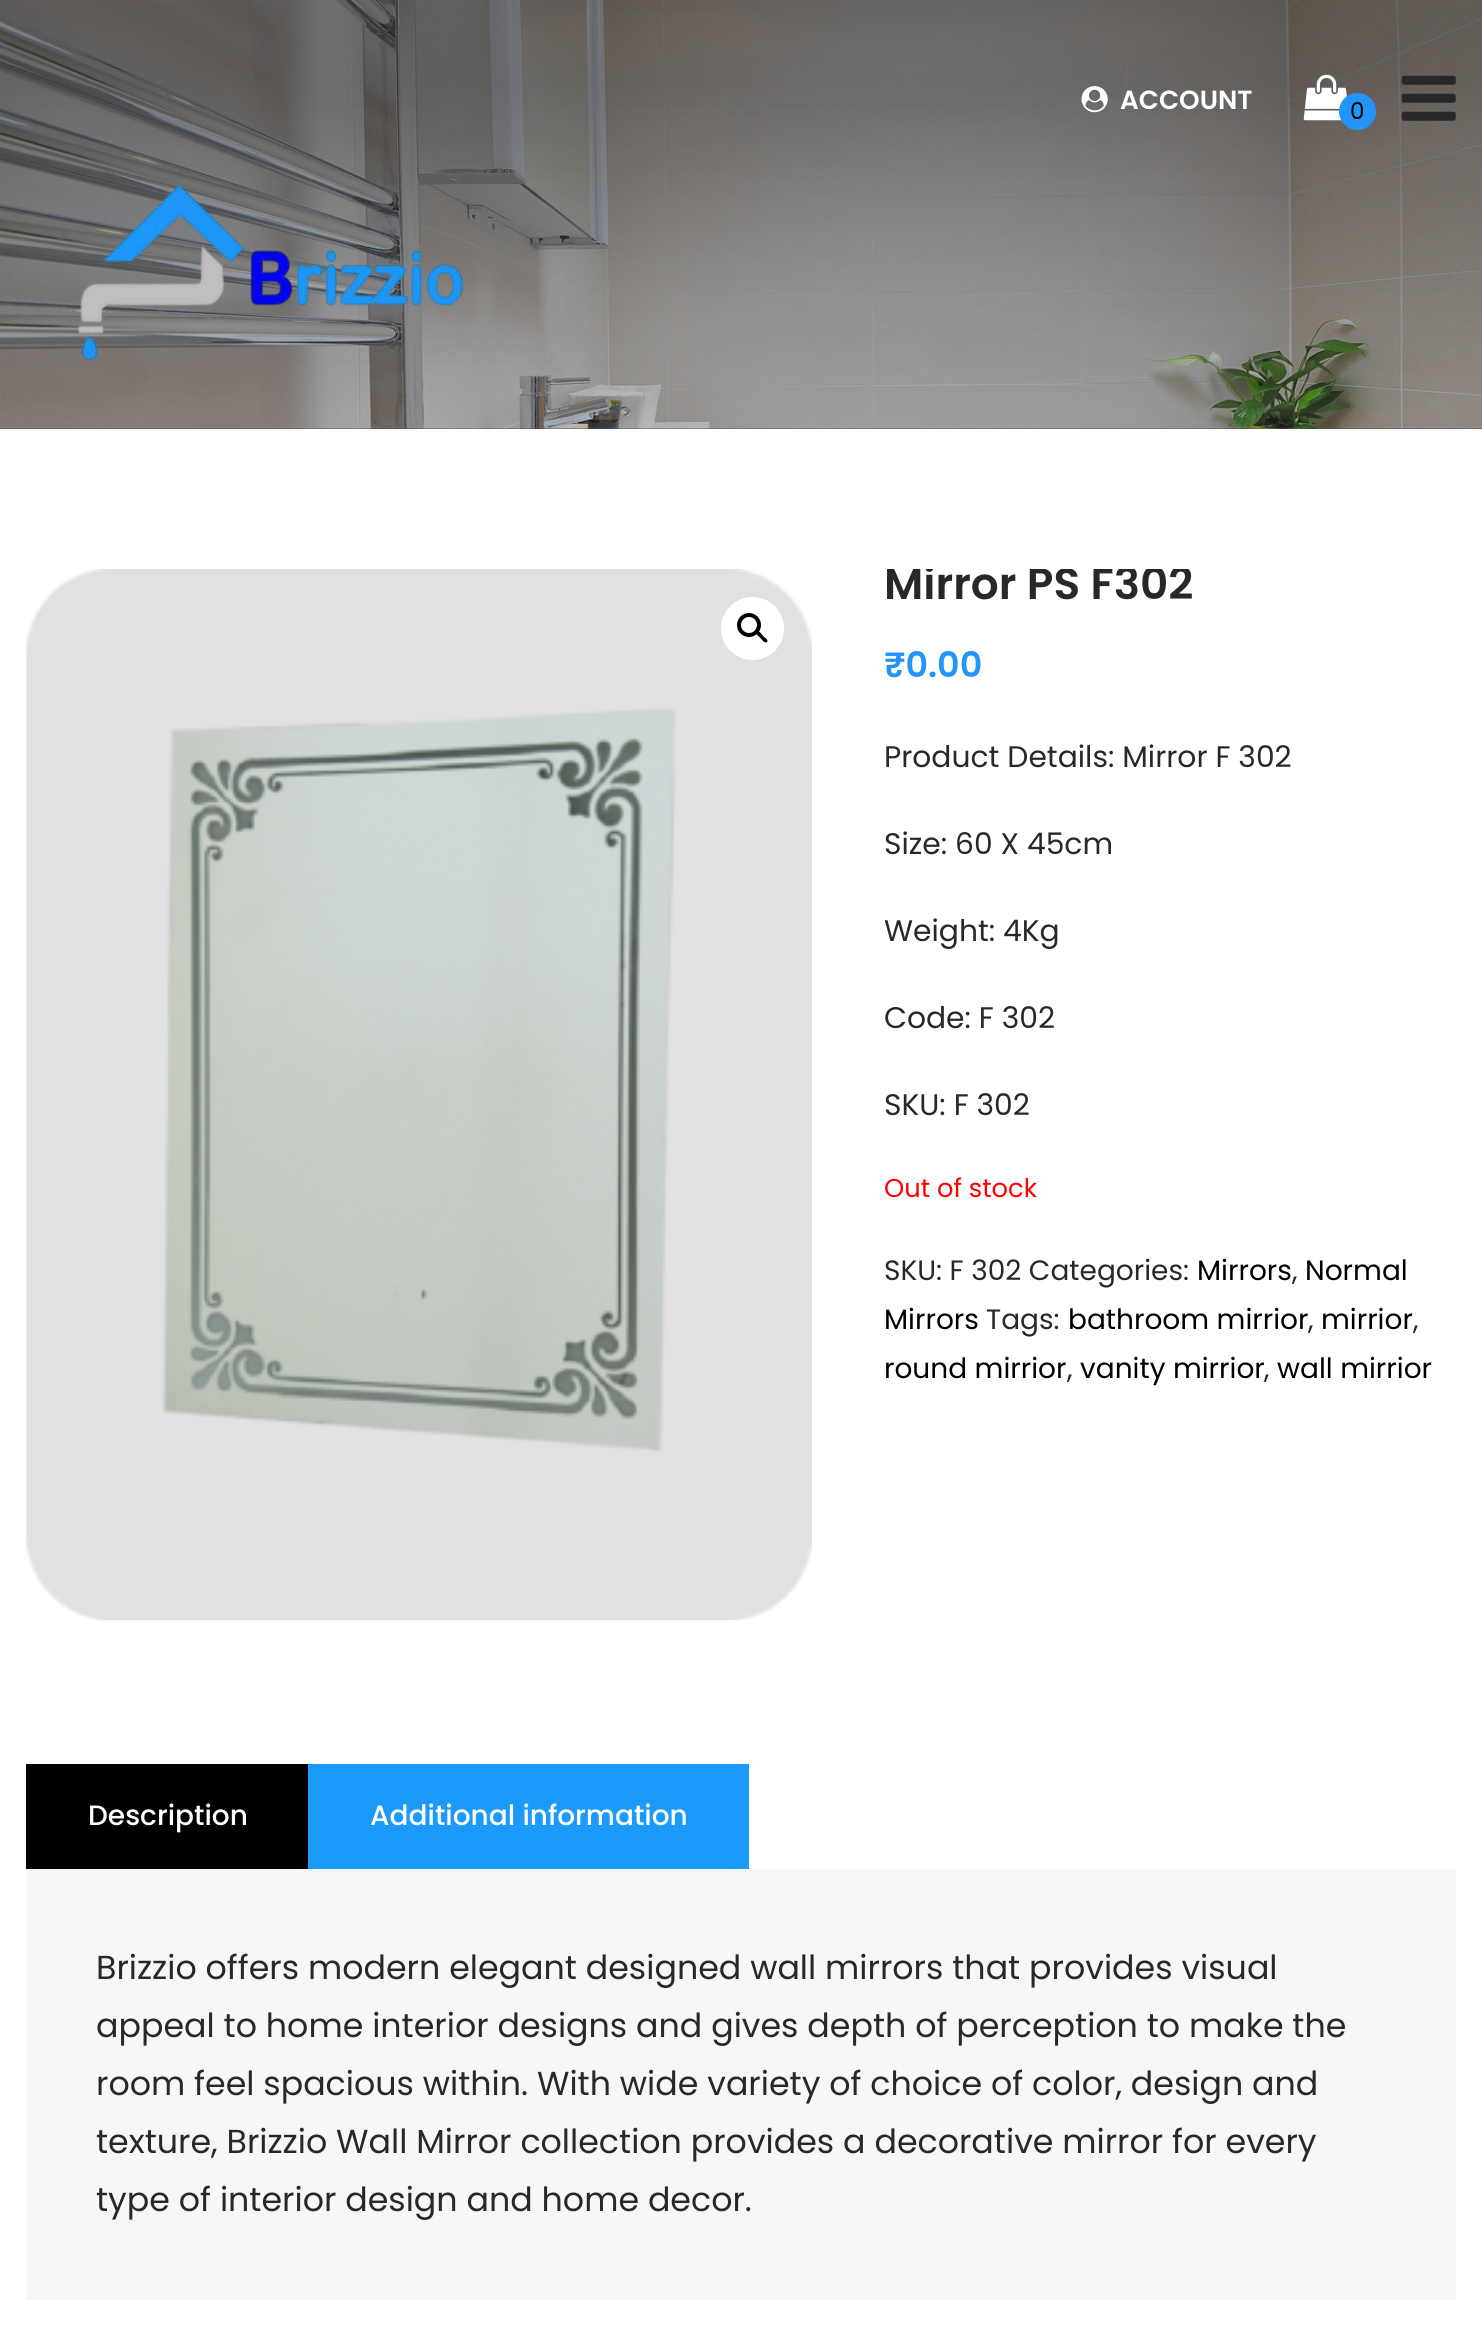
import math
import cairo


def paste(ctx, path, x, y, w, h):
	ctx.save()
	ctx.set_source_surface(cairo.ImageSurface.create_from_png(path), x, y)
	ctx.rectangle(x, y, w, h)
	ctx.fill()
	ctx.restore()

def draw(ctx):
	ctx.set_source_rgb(1, 1, 1)
	ctx.paint()
	ctx.set_source_rgb(0.329, 0.333, 0.337)
	ctx.rectangle(0, 428, 1482, 1)
	ctx.fill()
	paste(ctx, 'media/1.png', 0, 0, 1482, 429)
	gradient = cairo.LinearGradient(741, 429, 741, 0)
	gradient.add_color_stop_rgba(0, 0.157, 0.157, 0.157, 0.3)
	gradient.add_color_stop_rgba(0.8, 0.157, 0.157, 0.157, 0.6)
	ctx.set_source(gradient)
	ctx.rectangle(0, 0, 1482, 429)
	ctx.fill()
	paste(ctx, 'media/2.png', 1081, 86, 27, 27)
	ctx.select_font_face('Poppins SemiBold')
	ctx.set_font_size(26.25)
	ctx.set_source_rgb(1, 1, 1)
	ctx.move_to(1120, 109)
	ctx.show_text('ACCOUNT')
	paste(ctx, 'media/3.png', 1303, 74, 44, 47)
	ctx.set_source_rgb(0.137, 0.584, 0.976)
	ctx.arc(1357.5, 111.5, 18.5, 0, 2 * math.pi)
	ctx.fill()
	ctx.select_font_face('Poppins')
	ctx.set_font_size(23)
	ctx.set_source_rgb(0, 0, 0)
	ctx.move_to(1350, 119)
	ctx.show_text('0')
	paste(ctx, 'media/4.png', 1401, 75, 55, 46)
	paste(ctx, 'media/5.png', 78, 184, 386, 177)
	paste(ctx, 'media/6.png', 26, 569, 786, 1052)
	ctx.set_source_rgb(1, 1, 1)
	ctx.arc(752.5, 628.5, 31.5, 0, 2 * math.pi)
	ctx.fill()
	ctx.arc(749, 625, 10, 0, 2 * math.pi)
	ctx.set_source_rgb(0, 0, 0)
	ctx.set_line_width(4)
	ctx.stroke()
	ctx.new_path()
	ctx.move_to(757, 632)
	ctx.curve_to(759, 630, 762, 634.5, 763, 636)
	ctx.curve_to(764, 637, 769, 640, 767, 642)
	ctx.curve_to(765, 644, 761.5, 639.5, 760.5, 638)
	ctx.curve_to(759.5, 637, 755, 634, 757, 632)
	ctx.close_path()
	ctx.fill()
	ctx.save()
	ctx.rectangle(0, 569, 1482, 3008)
	ctx.clip()
	ctx.select_font_face('Poppins SemiBold')
	ctx.set_font_size(43.75)
	ctx.set_source_rgb(0.157, 0.157, 0.157)
	ctx.move_to(884, 599)
	ctx.show_text('Mirror PS F302')
	ctx.restore()
	ctx.select_font_face('Poppins SemiBold')
	ctx.set_font_size(35)
	ctx.set_source_rgb(0.137, 0.584, 0.976)
	ctx.move_to(884, 677)
	ctx.show_text('₹0.00')
	ctx.select_font_face('Poppins')
	ctx.set_font_size(29.75)
	ctx.set_source_rgb(0.157, 0.157, 0.157)
	for x, y, s in [
		(884, 767, 'Product Details: Mirror F 302'),
		(884, 854, 'Size: 60 X 45cm'),
		(884, 941, 'Weight: 4Kg'),
		(884, 1028, 'Code: F 302'),
		(884, 1115, 'SKU: F 302'),
	]:
		ctx.move_to(x, y)
		ctx.show_text(s)
	ctx.set_font_size(25.75)
	ctx.set_source_rgb(1, 0, 0)
	ctx.move_to(884, 1197)
	ctx.show_text('Out of stock')
	ctx.set_font_size(28)
	ctx.set_source_rgb(0.157, 0.157, 0.157)
	ctx.move_to(884, 1280)
	ctx.show_text('SKU: F 302 Categories:')
	ctx.set_source_rgb(0, 0, 0)
	ctx.move_to(1197, 1280)
	ctx.show_text('Mirrors')
	ctx.set_source_rgb(0.157, 0.157, 0.157)
	ctx.move_to(1292, 1280)
	ctx.show_text(',')
	ctx.set_source_rgb(0, 0, 0)
	ctx.move_to(1305, 1280)
	ctx.show_text('Normal')
	ctx.move_to(884, 1329)
	ctx.show_text('Mirrors')
	ctx.set_source_rgb(0.157, 0.157, 0.157)
	ctx.move_to(986, 1329)
	ctx.show_text('Tags:')
	ctx.set_source_rgb(0, 0, 0)
	ctx.move_to(1068, 1329)
	ctx.show_text('bathroom mirrior')
	ctx.set_source_rgb(0.157, 0.157, 0.157)
	ctx.move_to(1308, 1329)
	ctx.show_text(',')
	ctx.set_source_rgb(0, 0, 0)
	ctx.move_to(1321, 1329)
	ctx.show_text('mirrior')
	ctx.set_source_rgb(0.157, 0.157, 0.157)
	ctx.move_to(1413, 1329)
	ctx.show_text(',')
	ctx.set_source_rgb(0, 0, 0)
	ctx.move_to(884, 1378)
	ctx.show_text('round mirrior')
	ctx.set_source_rgb(0.157, 0.157, 0.157)
	ctx.move_to(1067, 1378)
	ctx.show_text(',')
	ctx.set_source_rgb(0, 0, 0)
	ctx.move_to(1080, 1378)
	ctx.show_text('vanity mirrior')
	ctx.set_source_rgb(0.157, 0.157, 0.157)
	ctx.move_to(1264, 1378)
	ctx.show_text(',')
	ctx.set_source_rgb(0, 0, 0)
	ctx.move_to(1277, 1378)
	ctx.show_text('wall mirrior')
	ctx.rectangle(26, 1764, 282, 105)
	ctx.fill()
	ctx.select_font_face('Poppins Medium')
	ctx.set_source_rgb(1, 1, 1)
	ctx.move_to(88, 1825)
	ctx.show_text('Description')
	ctx.set_source_rgb(0.106, 0.604, 0.988)
	ctx.rectangle(308, 1764, 441, 105)
	ctx.fill()
	ctx.set_source_rgb(1, 1, 1)
	ctx.move_to(370, 1825)
	ctx.show_text('Additional information')
	ctx.set_source_rgb(0.965, 0.965, 0.965)
	ctx.rectangle(26, 1869, 1430, 431)
	ctx.fill()
	ctx.select_font_face('Poppins')
	ctx.set_font_size(33.25)
	ctx.set_source_rgb(0.157, 0.157, 0.157)
	for x, y, s in [
		(96, 1979, 'Brizzio offers modern elegant designed wall mirrors that provides visual'),
		(96, 2037, 'appeal to home interior designs and gives depth of perception to make the'),
		(96, 2095, 'room feel spacious within. With wide variety of choice of color, design and'),
		(96, 2153, 'texture, Brizzio Wall Mirror collection provides a decorative mirror for every'),
		(96, 2211, 'type of interior design and home decor.'),
	]:
		ctx.move_to(x, y)
		ctx.show_text(s)


surface = cairo.ImageSurface(cairo.FORMAT_RGB24, 1482, 2345)
ctx = cairo.Context(surface)
options = cairo.FontOptions()
options.set_hint_metrics(cairo.HINT_METRICS_OFF)
options.set_hint_style(cairo.HINT_STYLE_NONE)
ctx.set_font_options(options)
ctx.set_miter_limit(4)
draw(ctx)
surface.write_to_png('image.png')
